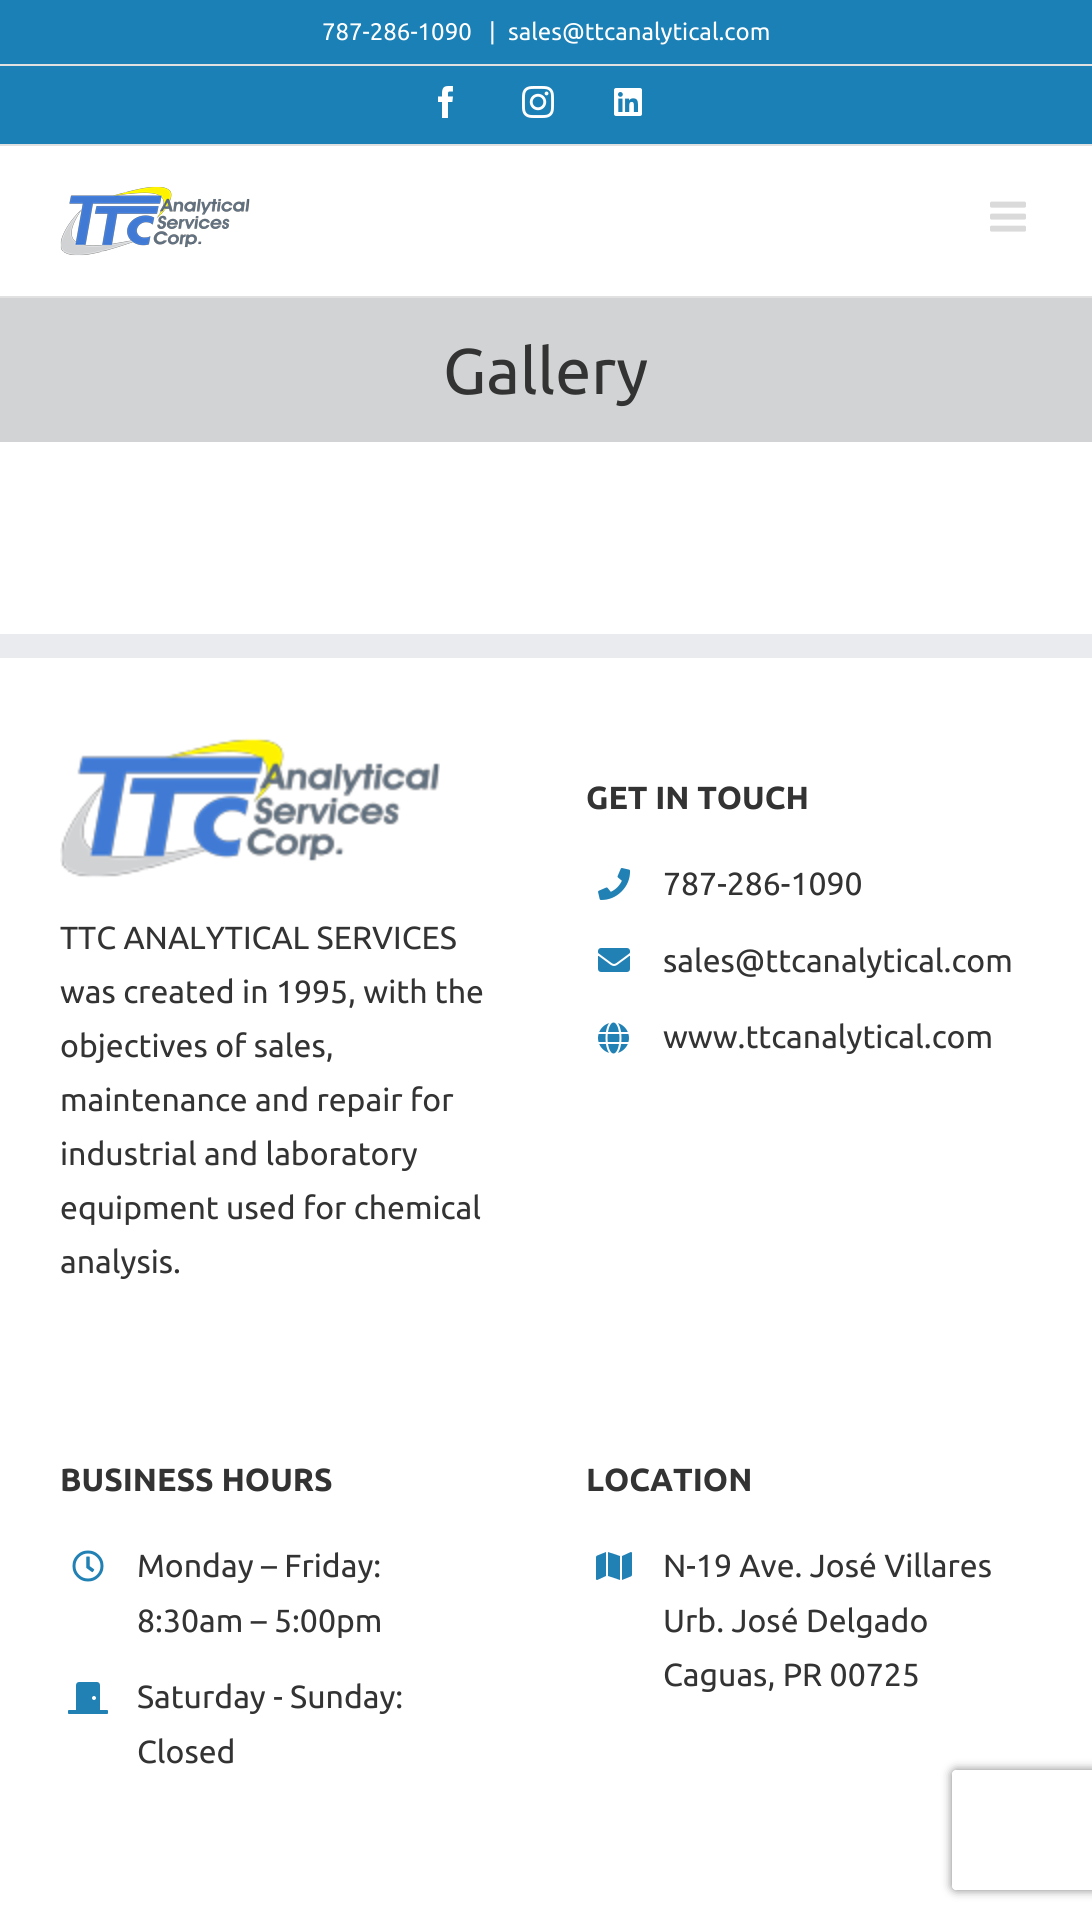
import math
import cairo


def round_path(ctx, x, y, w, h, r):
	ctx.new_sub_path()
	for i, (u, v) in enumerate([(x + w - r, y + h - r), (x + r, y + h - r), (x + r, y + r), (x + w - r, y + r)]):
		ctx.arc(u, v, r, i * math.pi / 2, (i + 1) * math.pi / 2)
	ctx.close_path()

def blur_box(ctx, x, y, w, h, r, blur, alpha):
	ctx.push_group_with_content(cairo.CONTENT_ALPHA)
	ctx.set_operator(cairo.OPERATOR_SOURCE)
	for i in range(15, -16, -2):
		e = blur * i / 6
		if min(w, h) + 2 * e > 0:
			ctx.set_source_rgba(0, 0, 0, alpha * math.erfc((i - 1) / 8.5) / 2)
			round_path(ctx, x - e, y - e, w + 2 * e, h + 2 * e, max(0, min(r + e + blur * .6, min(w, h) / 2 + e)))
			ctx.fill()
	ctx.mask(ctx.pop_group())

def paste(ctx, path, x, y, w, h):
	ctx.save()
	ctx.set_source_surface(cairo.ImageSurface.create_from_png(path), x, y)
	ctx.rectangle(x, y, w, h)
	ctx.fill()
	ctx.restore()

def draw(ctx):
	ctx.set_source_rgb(1, 1, 1)
	ctx.paint()
	ctx.set_source_rgb(0.102, 0.502, 0.714)
	ctx.rectangle(0, 0, 1092, 144)
	ctx.fill()
	ctx.set_source_rgb(0.882, 0.882, 0.882)
	ctx.rectangle(0, 144, 1092, 2)
	ctx.rectangle(0, 64, 1092, 2)
	ctx.fill()
	ctx.select_font_face('Ubuntu')
	ctx.set_font_size(24)
	ctx.set_source_rgb(1, 1, 1)
	for x, y, s in [
		(322, 40, '787-286-1090'),
		(489, 40, '|'),
		(508, 40, 'sales@ttcanalytical.com'),
	]:
		ctx.move_to(x, y)
		ctx.show_text(s)
	paste(ctx, 'media/1.png', 438, 86, 15, 32)
	paste(ctx, 'media/2.png', 522, 86, 32, 32)
	paste(ctx, 'media/3.png', 614, 88, 28, 28)
	ctx.set_source_rgb(0.882, 0.882, 0.882)
	ctx.rectangle(0, 296, 1092, 2)
	ctx.fill()
	paste(ctx, 'media/4.png', 60, 186, 190, 70)
	paste(ctx, 'media/5.png', 990, 201, 36, 31)
	ctx.set_source_rgb(0.824, 0.827, 0.831)
	ctx.rectangle(0, 298, 1092, 144)
	ctx.fill()
	ctx.set_font_size(64.5)
	ctx.set_source_rgb(0.2, 0.2, 0.2)
	ctx.move_to(443, 394)
	ctx.show_text('Gallery')
	ctx.set_source_rgb(0.914, 0.918, 0.933)
	ctx.rectangle(0, 634, 1092, 24)
	ctx.fill()
	paste(ctx, 'media/6.png', 60, 738, 380, 140)
	ctx.set_font_size(32)
	ctx.set_source_rgb(0.2, 0.2, 0.2)
	for x, y, s in [
		(60, 949, 'TTC ANALYTICAL SERVICES'),
		(60, 1003, 'was created in 1995, with the'),
		(60, 1057, 'objectives of sales,'),
		(60, 1111, 'maintenance and repair for'),
		(60, 1165, 'industrial and laboratory'),
		(60, 1219, 'equipment used for chemical'),
		(60, 1273, 'analysis.'),
	]:
		ctx.move_to(x, y)
		ctx.show_text(s)
	ctx.select_font_face('Ubuntu', cairo.FONT_SLANT_NORMAL, cairo.FONT_WEIGHT_BOLD)
	ctx.move_to(586, 809)
	ctx.show_text('GET IN TOUCH')
	paste(ctx, 'media/7.png', 598, 868, 33, 32)
	ctx.select_font_face('Ubuntu')
	ctx.move_to(663, 895)
	ctx.show_text('787-286-1090')
	paste(ctx, 'media/8.png', 598, 948, 32, 24)
	ctx.move_to(663, 972)
	ctx.show_text('sales@ttcanalytical.com')
	paste(ctx, 'media/9.png', 598, 1022, 31, 32)
	ctx.move_to(663, 1048)
	ctx.show_text('www.ttcanalytical.com')
	ctx.select_font_face('Ubuntu', cairo.FONT_SLANT_NORMAL, cairo.FONT_WEIGHT_BOLD)
	ctx.move_to(60, 1491)
	ctx.show_text('BUSINESS HOURS')
	paste(ctx, 'media/10.png', 72, 1550, 32, 32)
	ctx.select_font_face('Ubuntu')
	ctx.move_to(137, 1577)
	ctx.show_text('Monday – Friday:')
	ctx.move_to(137, 1632)
	ctx.show_text('8:30am – 5:00pm')
	paste(ctx, 'media/11.png', 68, 1682, 40, 32)
	ctx.move_to(137, 1708)
	ctx.show_text('Saturday - Sunday:')
	ctx.move_to(137, 1763)
	ctx.show_text('Closed')
	ctx.select_font_face('Ubuntu', cairo.FONT_SLANT_NORMAL, cairo.FONT_WEIGHT_BOLD)
	ctx.move_to(586, 1491)
	ctx.show_text('LOCATION')
	paste(ctx, 'media/12.png', 596, 1552, 36, 28)
	ctx.select_font_face('Ubuntu')
	for x, y, s in [
		(663, 1577, 'N-19 Ave. José Villares'),
		(663, 1632, 'Urb. José Delgado'),
		(663, 1686, 'Caguas, PR 00725'),
	]:
		ctx.move_to(x, y)
		ctx.show_text(s)
	ctx.save()
	ctx.set_fill_rule(cairo.FILL_RULE_EVEN_ODD)
	ctx.new_path()
	ctx.move_to(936, 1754)
	ctx.line_to(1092, 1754)
	ctx.line_to(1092, 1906)
	ctx.line_to(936, 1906)
	ctx.close_path()
	ctx.move_to(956, 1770)
	ctx.line_to(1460, 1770)
	ctx.curve_to(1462, 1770, 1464, 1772, 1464, 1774)
	ctx.line_to(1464, 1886)
	ctx.curve_to(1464, 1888, 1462, 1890, 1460, 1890)
	ctx.line_to(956, 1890)
	ctx.curve_to(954, 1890, 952, 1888, 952, 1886)
	ctx.line_to(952, 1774)
	ctx.curve_to(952, 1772, 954, 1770, 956, 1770)
	ctx.close_path()
	ctx.clip()
	ctx.set_source_rgb(0.502, 0.502, 0.502)
	blur_box(ctx, 952, 1770, 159, 120, 4, 5, 1)
	ctx.restore()


surface = cairo.ImageSurface(cairo.FORMAT_RGB24, 1092, 1917)
ctx = cairo.Context(surface)
options = cairo.FontOptions()
options.set_hint_metrics(cairo.HINT_METRICS_OFF)
options.set_hint_style(cairo.HINT_STYLE_NONE)
ctx.set_font_options(options)
ctx.set_miter_limit(4)
draw(ctx)
surface.write_to_png('image.png')
